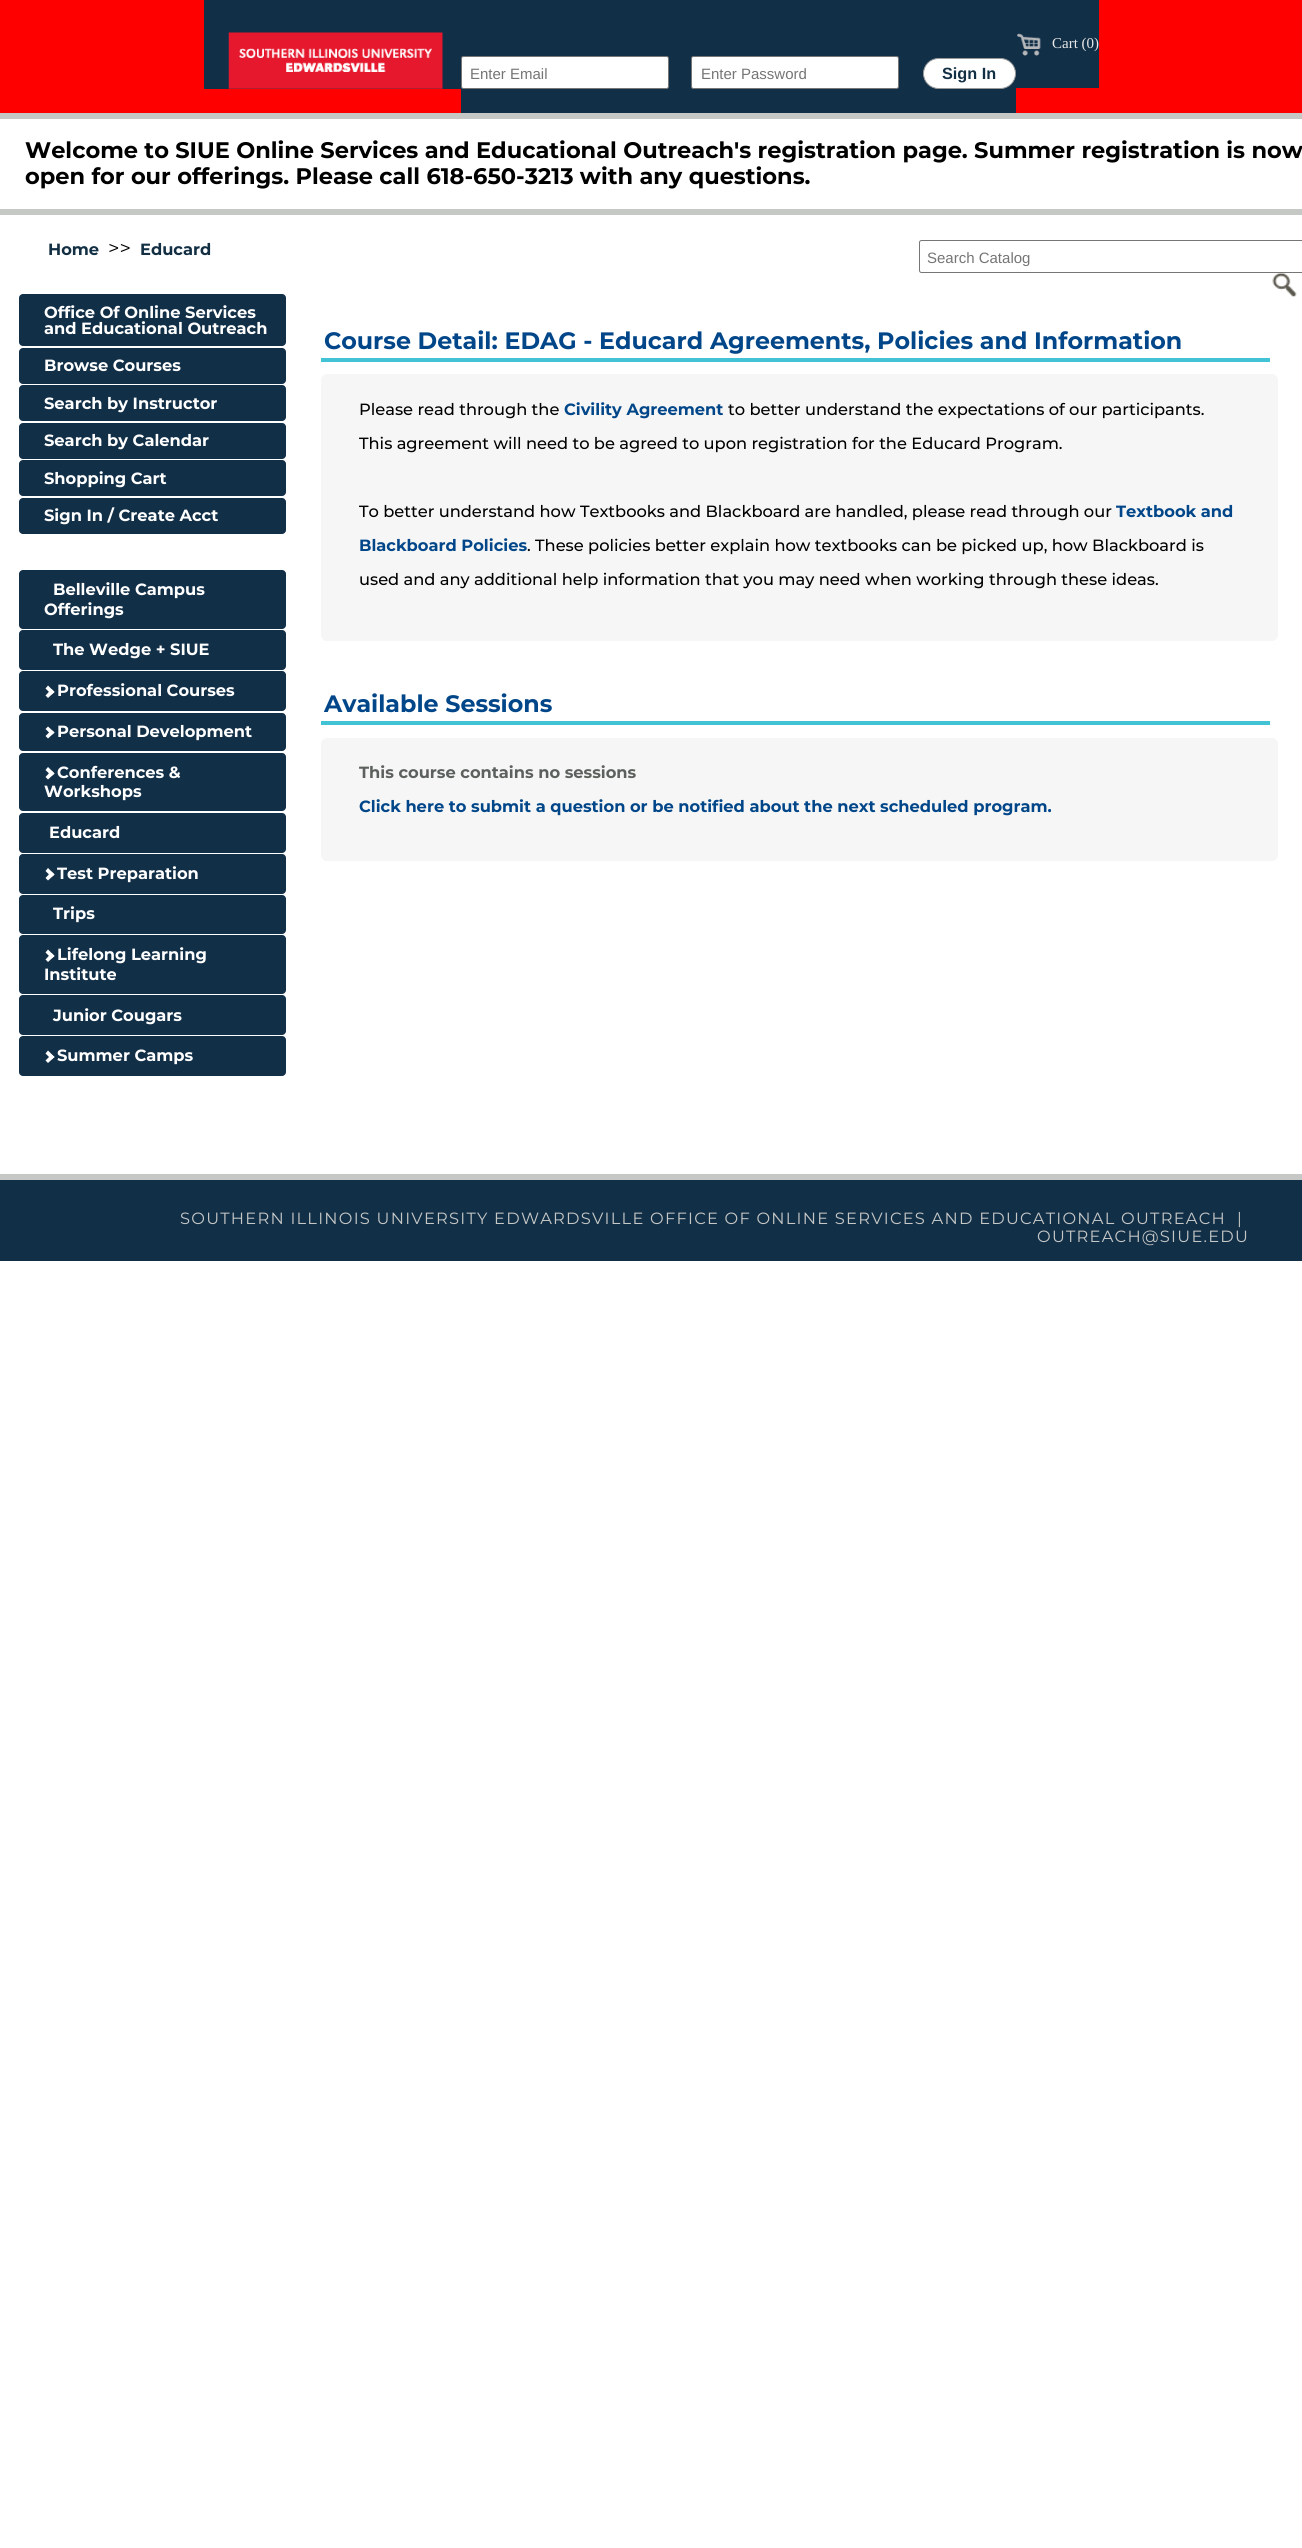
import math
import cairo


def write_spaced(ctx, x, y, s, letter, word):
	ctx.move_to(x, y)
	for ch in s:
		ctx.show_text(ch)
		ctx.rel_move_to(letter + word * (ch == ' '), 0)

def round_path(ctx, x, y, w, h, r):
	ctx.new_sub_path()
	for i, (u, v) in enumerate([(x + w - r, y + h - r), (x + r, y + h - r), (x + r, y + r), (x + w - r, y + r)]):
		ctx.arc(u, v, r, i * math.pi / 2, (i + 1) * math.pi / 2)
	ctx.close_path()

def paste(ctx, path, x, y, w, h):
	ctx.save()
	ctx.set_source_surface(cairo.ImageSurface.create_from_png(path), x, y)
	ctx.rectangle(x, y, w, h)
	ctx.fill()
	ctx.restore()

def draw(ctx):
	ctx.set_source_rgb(1, 1, 1)
	ctx.paint()
	ctx.set_source_rgb(1, 0, 0)
	ctx.rectangle(0, 0, 1302, 113)
	ctx.fill()
	ctx.set_source_rgb(0.776, 0.784, 0.776)
	ctx.rectangle(0, 113, 1302, 6)
	ctx.fill()
	ctx.set_source_rgb(0.071, 0.184, 0.282)
	ctx.rectangle(204, 0, 257, 89)
	ctx.fill()
	paste(ctx, 'media/1.png', 228, 32, 215, 57)
	ctx.rectangle(1016, 0, 83, 88)
	ctx.fill()
	paste(ctx, 'media/2.png', 1017, 33, 24, 23)
	ctx.select_font_face('Liberation Serif')
	ctx.set_font_size(15)
	ctx.set_source_rgb(0.91, 0.914, 0.91)
	ctx.move_to(1052, 48)
	ctx.show_text('Cart (0)')
	ctx.set_source_rgb(0.071, 0.184, 0.282)
	ctx.rectangle(461, 0, 555, 113)
	ctx.fill()
	ctx.set_source_rgb(1, 1, 1)
	round_path(ctx, 461.5, 56.5, 207, 32, 2)
	ctx.fill_preserve()
	ctx.set_source_rgb(0.463, 0.463, 0.463)
	ctx.set_line_width(1)
	ctx.stroke()
	ctx.select_font_face('Liberation Sans')
	ctx.set_source_rgb(0.459, 0.459, 0.459)
	ctx.move_to(470, 79)
	ctx.show_text('Enter Email')
	ctx.set_source_rgb(1, 1, 1)
	round_path(ctx, 691.5, 56.5, 207, 32, 2)
	ctx.fill_preserve()
	ctx.set_source_rgb(0.463, 0.463, 0.463)
	ctx.stroke()
	ctx.set_source_rgb(0.459, 0.459, 0.459)
	ctx.move_to(701, 79)
	ctx.show_text('Enter Password')
	ctx.set_source_rgb(1, 1, 1)
	round_path(ctx, 923.5, 58.5, 92, 30, 15)
	ctx.fill_preserve()
	ctx.set_source_rgb(0.6, 0.6, 0.6)
	ctx.stroke()
	ctx.select_font_face('Liberation Sans', cairo.FONT_SLANT_NORMAL, cairo.FONT_WEIGHT_BOLD)
	ctx.set_font_size(16.25)
	ctx.set_source_rgb(0.071, 0.184, 0.267)
	ctx.move_to(942, 79)
	ctx.show_text('Sign In')
	ctx.set_source_rgb(0.776, 0.784, 0.776)
	ctx.rectangle(0, 209, 1302, 6)
	ctx.fill()
	ctx.select_font_face('Montserrat', cairo.FONT_SLANT_NORMAL, cairo.FONT_WEIGHT_BOLD)
	ctx.set_font_size(22.5)
	ctx.set_source_rgb(0, 0, 0)
	ctx.move_to(25, 158)
	ctx.show_text('Welcome to SIUE Online Services and Educational Outreach\'s registration page. Summer registration is now')
	ctx.move_to(25, 184)
	ctx.show_text('open for our offerings. Please call 618-650-3213 with any questions.')
	ctx.set_font_size(16.25)
	ctx.set_source_rgb(0.071, 0.184, 0.267)
	ctx.move_to(48, 255)
	ctx.show_text('Home')
	ctx.select_font_face('Montserrat')
	ctx.set_font_size(20)
	ctx.set_source_rgb(0, 0, 0)
	ctx.move_to(108, 255)
	ctx.show_text('>>')
	ctx.select_font_face('Montserrat', cairo.FONT_SLANT_NORMAL, cairo.FONT_WEIGHT_BOLD)
	ctx.set_font_size(16.25)
	ctx.set_source_rgb(0.071, 0.184, 0.267)
	ctx.move_to(140, 255)
	ctx.show_text('Educard')
	round_path(ctx, 919.5, 240.5, 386, 32, 2)
	ctx.set_source_rgb(0.463, 0.463, 0.463)
	ctx.stroke()
	ctx.select_font_face('Liberation Sans')
	ctx.set_font_size(15)
	ctx.set_source_rgb(0.459, 0.459, 0.459)
	ctx.move_to(927, 263)
	ctx.show_text('Search Catalog')
	paste(ctx, 'media/3.png', 1272, 272, 25, 25)
	ctx.set_source_rgb(0.071, 0.184, 0.282)
	round_path(ctx, 19, 294, 267, 52, 4)
	ctx.fill()
	ctx.select_font_face('Montserrat', cairo.FONT_SLANT_NORMAL, cairo.FONT_WEIGHT_BOLD)
	ctx.set_font_size(16.25)
	ctx.set_source_rgb(1, 1, 1)
	ctx.move_to(44, 318)
	ctx.show_text('Office Of Online Services')
	ctx.move_to(44, 334)
	ctx.show_text('and Educational Outreach')
	ctx.set_source_rgb(0.071, 0.184, 0.282)
	round_path(ctx, 19, 348, 267, 36, 4)
	ctx.fill()
	ctx.set_source_rgb(1, 1, 1)
	ctx.move_to(44, 371)
	ctx.show_text('Browse Courses')
	ctx.set_source_rgb(0.071, 0.184, 0.282)
	round_path(ctx, 19, 385, 267, 36, 4)
	ctx.fill()
	ctx.set_source_rgb(1, 1, 1)
	ctx.move_to(44, 409)
	ctx.show_text('Search by Instructor')
	ctx.set_source_rgb(0.071, 0.184, 0.282)
	round_path(ctx, 19, 423, 267, 36, 4)
	ctx.fill()
	ctx.set_source_rgb(1, 1, 1)
	ctx.move_to(44, 446)
	ctx.show_text('Search by Calendar')
	ctx.set_source_rgb(0.071, 0.184, 0.282)
	round_path(ctx, 19, 460, 267, 36, 4)
	ctx.fill()
	ctx.set_source_rgb(1, 1, 1)
	ctx.move_to(44, 484)
	ctx.show_text('Shopping Cart')
	ctx.set_source_rgb(0.071, 0.184, 0.282)
	round_path(ctx, 19, 498, 267, 36, 4)
	ctx.fill()
	ctx.set_source_rgb(1, 1, 1)
	ctx.move_to(44, 521)
	ctx.show_text('Sign In / Create Acct')
	ctx.set_source_rgb(0.071, 0.184, 0.282)
	round_path(ctx, 19, 570, 267, 59, 4)
	ctx.fill()
	ctx.set_source_rgb(1, 1, 1)
	ctx.move_to(53, 595)
	ctx.show_text('Belleville Campus')
	ctx.move_to(44, 615)
	ctx.show_text('Offerings')
	ctx.set_source_rgb(0.071, 0.184, 0.282)
	round_path(ctx, 19, 630, 267, 40, 4)
	ctx.fill()
	ctx.set_source_rgb(1, 1, 1)
	ctx.move_to(53, 655)
	ctx.show_text('The Wedge + SIUE')
	ctx.set_source_rgb(0.071, 0.184, 0.282)
	round_path(ctx, 19, 671, 267, 40, 4)
	ctx.fill()
	ctx.set_source_rgb(1, 1, 1)
	ctx.new_path()
	ctx.move_to(45.5, 688.5)
	ctx.line_to(48, 685.5)
	ctx.line_to(54.5, 692)
	ctx.line_to(51.5, 694.5)
	ctx.close_path()
	ctx.fill()
	ctx.set_source_rgb(0.071, 0.184, 0.282)
	round_path(ctx, 19, 713, 267, 38, 4)
	ctx.fill()
	ctx.set_source_rgb(1, 1, 1)
	ctx.new_path()
	ctx.move_to(45.5, 695.5)
	ctx.line_to(51.5, 689)
	ctx.line_to(54.5, 692)
	ctx.line_to(48, 698)
	ctx.close_path()
	ctx.move_to(45.5, 729)
	ctx.line_to(48, 726.5)
	ctx.line_to(54.5, 732.5)
	ctx.line_to(51.5, 735)
	ctx.close_path()
	ctx.fill()
	ctx.move_to(57, 696)
	ctx.show_text('Professional Courses')
	ctx.set_source_rgb(0.071, 0.184, 0.282)
	round_path(ctx, 19, 753, 267, 58, 4)
	ctx.fill()
	ctx.set_source_rgb(1, 1, 1)
	ctx.new_path()
	ctx.move_to(45.5, 736)
	ctx.line_to(51.5, 730)
	ctx.line_to(54.5, 732.5)
	ctx.line_to(48, 738.5)
	ctx.close_path()
	ctx.move_to(45.5, 770)
	ctx.line_to(48, 767)
	ctx.line_to(54.5, 773.5)
	ctx.line_to(51.5, 776)
	ctx.close_path()
	ctx.fill()
	ctx.move_to(57, 737)
	ctx.show_text('Personal Development')
	ctx.new_path()
	ctx.move_to(45.5, 777)
	ctx.line_to(51.5, 770.5)
	ctx.line_to(54.5, 773.5)
	ctx.line_to(48, 779.5)
	ctx.close_path()
	ctx.fill()
	ctx.move_to(57, 778)
	ctx.show_text('Conferences &')
	ctx.move_to(44, 797)
	ctx.show_text('Workshops')
	ctx.set_source_rgb(0.071, 0.184, 0.282)
	round_path(ctx, 19, 813, 267, 40, 4)
	ctx.fill()
	ctx.set_source_rgb(1, 1, 1)
	ctx.move_to(49, 838)
	ctx.show_text('Educard')
	ctx.set_source_rgb(0.071, 0.184, 0.282)
	round_path(ctx, 19, 854, 267, 40, 4)
	ctx.fill()
	ctx.set_source_rgb(1, 1, 1)
	ctx.new_path()
	ctx.move_to(45.5, 871)
	ctx.line_to(48, 868)
	ctx.line_to(54.5, 874.5)
	ctx.line_to(51.5, 877)
	ctx.close_path()
	ctx.fill()
	ctx.new_path()
	ctx.move_to(45.5, 878)
	ctx.line_to(51.5, 871.5)
	ctx.line_to(54.5, 874.5)
	ctx.line_to(48, 880.5)
	ctx.close_path()
	ctx.fill()
	ctx.move_to(57, 879)
	ctx.show_text('Test Preparation')
	ctx.set_source_rgb(0.071, 0.184, 0.282)
	round_path(ctx, 19, 895, 267, 39, 4)
	ctx.fill()
	ctx.set_source_rgb(1, 1, 1)
	ctx.move_to(53, 919)
	ctx.show_text('Trips')
	ctx.set_source_rgb(0.071, 0.184, 0.282)
	round_path(ctx, 19, 935, 267, 59, 4)
	ctx.fill()
	ctx.set_source_rgb(1, 1, 1)
	ctx.new_path()
	ctx.move_to(45.5, 952.5)
	ctx.line_to(48, 949.5)
	ctx.line_to(54.5, 956)
	ctx.line_to(51.5, 958.5)
	ctx.close_path()
	ctx.fill()
	ctx.new_path()
	ctx.move_to(45.5, 959.5)
	ctx.line_to(51.5, 953)
	ctx.line_to(54.5, 956)
	ctx.line_to(48, 962)
	ctx.close_path()
	ctx.fill()
	ctx.move_to(57, 960)
	ctx.show_text('Lifelong Learning')
	ctx.move_to(44, 980)
	ctx.show_text('Institute')
	ctx.set_source_rgb(0.071, 0.184, 0.282)
	round_path(ctx, 19, 995, 267, 40, 4)
	ctx.fill()
	ctx.set_source_rgb(1, 1, 1)
	ctx.move_to(53, 1021)
	ctx.show_text('Junior Cougars')
	ctx.set_source_rgb(0.071, 0.184, 0.282)
	round_path(ctx, 19, 1036, 267, 40, 4)
	ctx.fill()
	ctx.set_source_rgb(1, 1, 1)
	ctx.new_path()
	ctx.move_to(45.5, 1053.5)
	ctx.line_to(48, 1050.5)
	ctx.line_to(54.5, 1057)
	ctx.line_to(51.5, 1059.5)
	ctx.close_path()
	ctx.fill()
	ctx.new_path()
	ctx.move_to(45.5, 1060.5)
	ctx.line_to(51.5, 1054.5)
	ctx.line_to(54.5, 1057)
	ctx.line_to(48, 1063)
	ctx.close_path()
	ctx.fill()
	ctx.move_to(57, 1061)
	ctx.show_text('Summer Camps')
	ctx.set_source_rgb(0.259, 0.761, 0.835)
	ctx.rectangle(321, 358, 949, 4)
	ctx.fill()
	ctx.set_font_size(23.75)
	ctx.set_source_rgb(0, 0.275, 0.537)
	ctx.move_to(324, 349)
	ctx.show_text('Course Detail: EDAG - Educard Agreements, Policies and Information')
	ctx.set_source_rgb(0.961, 0.961, 0.961)
	round_path(ctx, 321, 374, 957, 267, 6)
	ctx.fill()
	ctx.select_font_face('Montserrat Medium')
	ctx.set_font_size(16.25)
	ctx.set_source_rgb(0, 0, 0)
	ctx.move_to(359, 415)
	ctx.show_text('Please read through the')
	ctx.select_font_face('Montserrat', cairo.FONT_SLANT_NORMAL, cairo.FONT_WEIGHT_BOLD)
	ctx.set_source_rgb(0, 0.275, 0.537)
	ctx.move_to(564, 415)
	ctx.show_text('Civility Agreement')
	ctx.select_font_face('Montserrat Medium')
	ctx.set_source_rgb(0, 0, 0)
	for x, y, s in [
		(728, 415, 'to better understand the expectations of our participants.'),
		(359, 449, 'This agreement will need to be agreed to upon registration for the Educard Program.'),
		(359, 517, 'To better understand how Textbooks and Blackboard are handled, please read through our'),
	]:
		ctx.move_to(x, y)
		ctx.show_text(s)
	ctx.select_font_face('Montserrat', cairo.FONT_SLANT_NORMAL, cairo.FONT_WEIGHT_BOLD)
	ctx.set_source_rgb(0, 0.275, 0.537)
	ctx.move_to(1116, 517)
	ctx.show_text('Textbook and')
	ctx.move_to(359, 551)
	ctx.show_text('Blackboard Policies')
	ctx.select_font_face('Montserrat Medium')
	ctx.set_source_rgb(0, 0, 0)
	ctx.move_to(527, 551)
	ctx.show_text('. These policies better explain how textbooks can be picked up, how Blackboard is')
	ctx.move_to(359, 585)
	ctx.show_text('used and any additional help information that you may need when working through these ideas.')
	ctx.set_source_rgb(0.259, 0.761, 0.835)
	ctx.rectangle(321, 721, 949, 4)
	ctx.fill()
	ctx.select_font_face('Montserrat', cairo.FONT_SLANT_NORMAL, cairo.FONT_WEIGHT_BOLD)
	ctx.set_font_size(23.75)
	ctx.set_source_rgb(0, 0.275, 0.537)
	ctx.move_to(324, 712)
	ctx.show_text('Available Sessions')
	ctx.set_source_rgb(0.961, 0.961, 0.961)
	round_path(ctx, 321, 738, 957, 123, 6)
	ctx.fill()
	ctx.set_font_size(16.25)
	ctx.set_source_rgb(0.365, 0.38, 0.365)
	ctx.move_to(359, 778)
	ctx.show_text('This course contains no sessions')
	ctx.set_source_rgb(0, 0.275, 0.537)
	ctx.move_to(359, 812)
	ctx.show_text('Click here to submit a question or be notified about the next scheduled program.')
	ctx.set_source_rgb(0.776, 0.784, 0.776)
	ctx.rectangle(0, 1174, 1302, 6)
	ctx.fill()
	ctx.set_source_rgb(0.071, 0.184, 0.282)
	ctx.rectangle(0, 1180, 1302, 81)
	ctx.fill()
	ctx.select_font_face('Montserrat')
	ctx.set_source_rgb(0.776, 0.784, 0.776)
	write_spaced(ctx, 180, 1224, 'SOUTHERN ILLINOIS UNIVERSITY EDWARDSVILLE OFFICE OF ONLINE SERVICES AND EDUCATIONAL OUTREACH  |', 1.25, 0)
	write_spaced(ctx, 1037, 1242, 'OUTREACH@SIUE.EDU', 1.25, 0)


surface = cairo.ImageSurface(cairo.FORMAT_RGB24, 1302, 2548)
ctx = cairo.Context(surface)
options = cairo.FontOptions()
options.set_hint_metrics(cairo.HINT_METRICS_OFF)
options.set_hint_style(cairo.HINT_STYLE_NONE)
ctx.set_font_options(options)
ctx.set_miter_limit(4)
draw(ctx)
surface.write_to_png('image.png')
